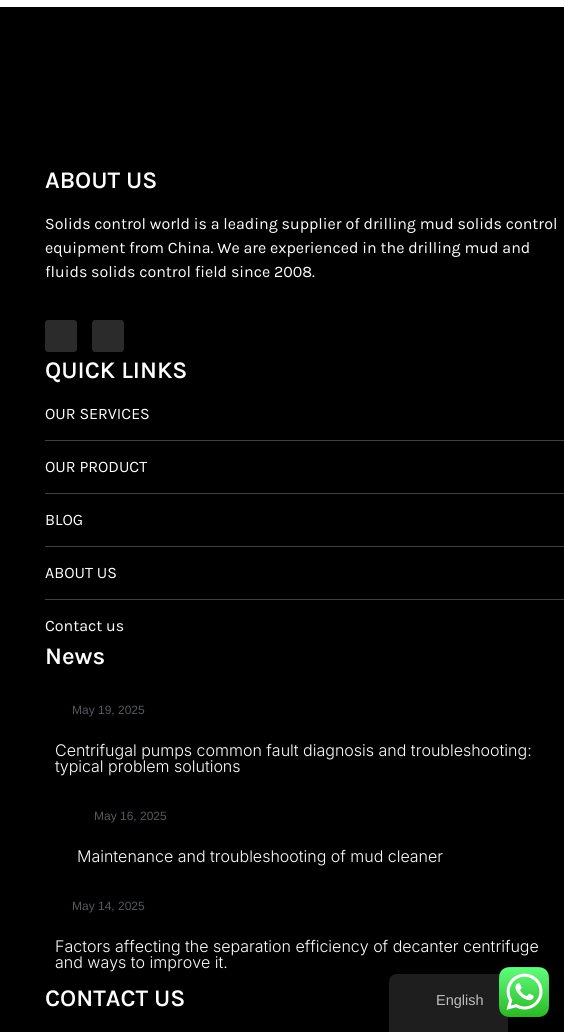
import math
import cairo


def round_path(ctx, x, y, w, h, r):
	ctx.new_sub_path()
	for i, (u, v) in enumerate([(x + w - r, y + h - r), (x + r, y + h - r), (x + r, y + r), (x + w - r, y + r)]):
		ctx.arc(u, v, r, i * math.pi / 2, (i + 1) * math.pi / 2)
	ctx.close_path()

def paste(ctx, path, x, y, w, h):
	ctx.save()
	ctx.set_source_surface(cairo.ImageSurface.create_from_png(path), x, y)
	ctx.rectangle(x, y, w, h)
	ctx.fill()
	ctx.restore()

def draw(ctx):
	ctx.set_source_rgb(1, 1, 1)
	ctx.paint()
	ctx.set_source_rgb(0, 0, 0)
	ctx.rectangle(0, 7, 564, 1025)
	ctx.fill()
	ctx.select_font_face('Karla SemiBold')
	ctx.set_font_size(24)
	ctx.set_source_rgb(1, 1, 1)
	ctx.move_to(45, 188)
	ctx.show_text('ABOUT US')
	ctx.select_font_face('Karla')
	ctx.set_font_size(16)
	for x, y, s in [
		(45, 229, 'Solids control world is a leading supplier of drilling mud solids control'),
		(45, 253, 'equipment from China. We are experienced in the drilling mud and'),
		(45, 277, 'fluids solids control field since 2008.'),
	]:
		ctx.move_to(x, y)
		ctx.show_text(s)
	ctx.set_source_rgb(0.169, 0.169, 0.169)
	round_path(ctx, 45, 320, 32, 32, 3)
	ctx.fill()
	round_path(ctx, 92, 320, 32, 32, 3)
	ctx.fill()
	ctx.select_font_face('Karla SemiBold')
	ctx.set_font_size(24)
	ctx.set_source_rgb(1, 1, 1)
	ctx.move_to(45, 378)
	ctx.show_text('QUICK LINKS')
	ctx.select_font_face('Karla')
	ctx.set_font_size(16)
	ctx.move_to(45, 419)
	ctx.show_text('OUR SERVICES')
	ctx.set_source_rgb(0.255, 0.255, 0.255)
	ctx.rectangle(45, 440, 519, 1)
	ctx.fill()
	ctx.set_source_rgb(1, 1, 1)
	ctx.move_to(45, 472)
	ctx.show_text('OUR PRODUCT')
	ctx.set_source_rgb(0.255, 0.255, 0.255)
	ctx.rectangle(45, 493, 519, 1)
	ctx.fill()
	ctx.set_source_rgb(1, 1, 1)
	ctx.move_to(45, 525)
	ctx.show_text('BLOG')
	ctx.set_source_rgb(0.255, 0.255, 0.255)
	ctx.rectangle(45, 546, 519, 1)
	ctx.fill()
	ctx.set_source_rgb(1, 1, 1)
	ctx.move_to(45, 578)
	ctx.show_text('ABOUT US')
	ctx.set_source_rgb(0.255, 0.255, 0.255)
	ctx.rectangle(45, 599, 519, 1)
	ctx.fill()
	ctx.set_source_rgb(1, 1, 1)
	ctx.move_to(45, 631)
	ctx.show_text('Contact us')
	ctx.select_font_face('Karla SemiBold')
	ctx.set_font_size(24)
	ctx.move_to(45, 664)
	ctx.show_text('News')
	ctx.select_font_face('Liberation Sans')
	ctx.set_font_size(12)
	ctx.set_source_rgb(0.329, 0.349, 0.373)
	ctx.move_to(72, 714)
	ctx.show_text('May 19, 2025')
	ctx.select_font_face('Inter Light')
	ctx.set_font_size(16)
	ctx.set_source_rgb(1, 1, 1)
	ctx.move_to(55, 756)
	ctx.show_text('Centrifugal pumps common fault diagnosis and troubleshooting:')
	ctx.move_to(55, 772)
	ctx.show_text('typical problem solutions')
	ctx.select_font_face('Liberation Sans')
	ctx.set_font_size(12)
	ctx.set_source_rgb(0.329, 0.349, 0.373)
	ctx.move_to(94, 820)
	ctx.show_text('May 16, 2025')
	ctx.select_font_face('Inter Light')
	ctx.set_font_size(16)
	ctx.set_source_rgb(1, 1, 1)
	ctx.move_to(77, 862)
	ctx.show_text('Maintenance and troubleshooting of mud cleaner')
	ctx.select_font_face('Liberation Sans')
	ctx.set_font_size(12)
	ctx.set_source_rgb(0.329, 0.349, 0.373)
	ctx.move_to(72, 910)
	ctx.show_text('May 14, 2025')
	ctx.select_font_face('Inter Light')
	ctx.set_font_size(16)
	ctx.set_source_rgb(1, 1, 1)
	ctx.move_to(55, 952)
	ctx.show_text('Factors affecting the separation efficiency of decanter centrifuge')
	ctx.move_to(55, 968)
	ctx.show_text('and ways to improve it.')
	ctx.select_font_face('Karla SemiBold')
	ctx.set_font_size(24)
	ctx.move_to(45, 1006)
	ctx.show_text('CONTACT US')
	ctx.set_source_rgb(0.118, 0.118, 0.118)
	ctx.new_path()
	ctx.move_to(397, 974)
	ctx.line_to(500, 974)
	ctx.curve_to(504.5, 974, 508, 977.5, 508, 982)
	ctx.line_to(508, 1032)
	ctx.line_to(389, 1032)
	ctx.line_to(389, 982)
	ctx.curve_to(389, 977.5, 392.5, 974, 397, 974)
	ctx.close_path()
	ctx.fill()
	ctx.select_font_face('Liberation Sans')
	ctx.set_font_size(14.5)
	ctx.set_source_rgb(0.741, 0.741, 0.741)
	ctx.move_to(436, 1005)
	ctx.show_text('English')
	paste(ctx, 'media/1.png', 499, 967, 50, 50)


surface = cairo.ImageSurface(cairo.FORMAT_RGB24, 564, 1032)
ctx = cairo.Context(surface)
options = cairo.FontOptions()
options.set_hint_metrics(cairo.HINT_METRICS_OFF)
options.set_hint_style(cairo.HINT_STYLE_NONE)
ctx.set_font_options(options)
ctx.set_miter_limit(4)
draw(ctx)
surface.write_to_png('image.png')
